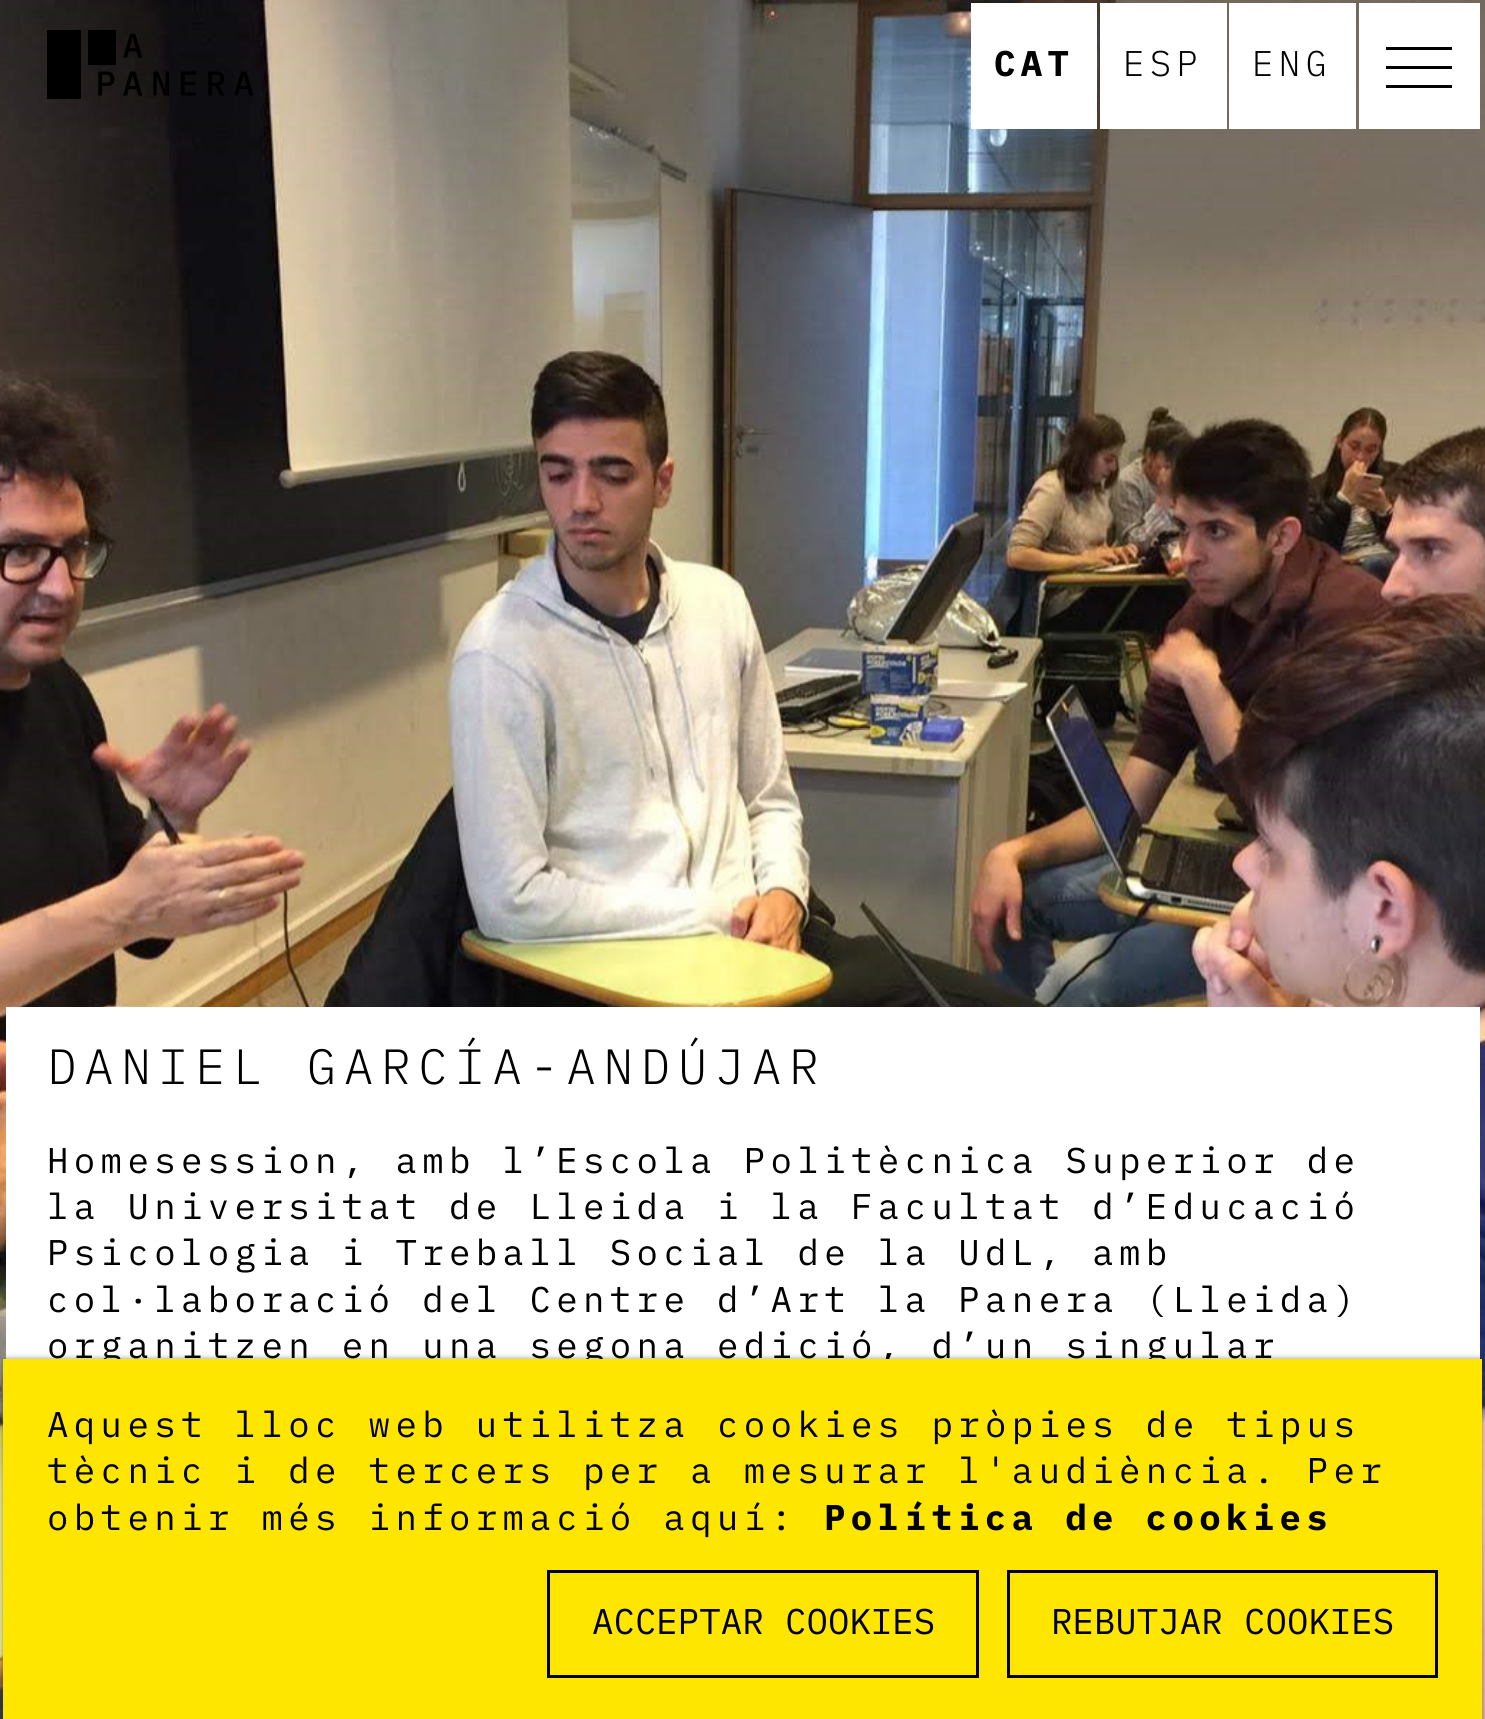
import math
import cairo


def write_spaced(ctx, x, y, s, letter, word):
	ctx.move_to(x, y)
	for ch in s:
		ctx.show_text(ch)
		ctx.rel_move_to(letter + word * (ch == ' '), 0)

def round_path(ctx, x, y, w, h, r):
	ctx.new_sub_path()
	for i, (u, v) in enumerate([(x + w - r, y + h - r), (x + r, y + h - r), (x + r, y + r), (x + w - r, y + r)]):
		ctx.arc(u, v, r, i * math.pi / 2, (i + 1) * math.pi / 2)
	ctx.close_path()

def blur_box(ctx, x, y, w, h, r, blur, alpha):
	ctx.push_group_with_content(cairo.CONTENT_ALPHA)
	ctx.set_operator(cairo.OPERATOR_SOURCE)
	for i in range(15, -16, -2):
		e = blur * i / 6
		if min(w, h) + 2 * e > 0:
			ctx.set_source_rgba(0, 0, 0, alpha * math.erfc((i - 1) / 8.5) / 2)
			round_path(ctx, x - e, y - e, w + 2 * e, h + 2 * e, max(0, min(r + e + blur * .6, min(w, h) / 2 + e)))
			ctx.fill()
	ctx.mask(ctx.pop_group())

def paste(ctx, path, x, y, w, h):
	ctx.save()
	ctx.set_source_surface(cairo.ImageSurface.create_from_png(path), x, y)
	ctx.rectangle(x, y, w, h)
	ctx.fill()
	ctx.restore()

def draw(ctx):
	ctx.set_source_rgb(1, 1, 1)
	ctx.paint()
	paste(ctx, 'media/2.png', 0, 0, 1485, 1719)
	paste(ctx, 'media/3.png', 3, 0, 1482, 1719)
	paste(ctx, 'media/1.png', 47, 30, 206, 69)
	ctx.set_source_rgb(1, 1, 1)
	ctx.rectangle(971, 3, 126, 126)
	ctx.fill()
	ctx.select_font_face('IBM Plex Mono', cairo.FONT_SLANT_NORMAL, cairo.FONT_WEIGHT_BOLD)
	ctx.set_font_size(35.75)
	ctx.set_source_rgb(0, 0, 0)
	write_spaced(ctx, 994, 76, 'CAT', 5.35, 0)
	ctx.set_source_rgb(1, 1, 1)
	ctx.rectangle(1100, 3, 127, 126)
	ctx.fill()
	ctx.select_font_face('IBM Plex Mono Light')
	ctx.set_source_rgb(0, 0, 0)
	write_spaced(ctx, 1123, 76, 'ESP', 5.35, 0)
	ctx.set_source_rgb(1, 1, 1)
	ctx.rectangle(1229, 3, 127, 126)
	ctx.fill()
	ctx.set_source_rgb(0, 0, 0)
	write_spaced(ctx, 1252, 76, 'ENG', 5.35, 0)
	ctx.set_source_rgb(1, 1, 1)
	ctx.rectangle(1359, 3, 121, 126)
	ctx.fill()
	ctx.set_source_rgb(0, 0, 0)
	ctx.rectangle(1386, 66, 66, 3)
	ctx.rectangle(1386, 47, 66, 3)
	ctx.rectangle(1386, 85, 66, 3)
	ctx.fill()
	ctx.set_source_rgb(1, 1, 1)
	ctx.rectangle(6, 1007, 1474, 352)
	ctx.fill()
	ctx.set_font_size(49.5)
	ctx.set_source_rgb(0, 0, 0)
	write_spaced(ctx, 47, 1084, 'DANIEL GARCÍA-ANDÚJAR', 7.4, 0)
	ctx.select_font_face('IBM Plex Mono')
	ctx.set_font_size(35.75)
	for x, y, s in [
		(47, 1173, 'Homesession, amb l’Escola Politècnica Superior de'),
		(47, 1219, 'la Universitat de Lleida i la Facultat d’Educació'),
		(47, 1265, 'Psicologia i Treball Social de la UdL, amb'),
		(47, 1312, 'col·laboració del Centre d’Art la Panera (Lleida)'),
		(47, 1358, 'organitzen en una segona edició, d’un singular'),
	]:
		write_spaced(ctx, x, y, s, 5.35, 0)
	ctx.set_source_rgb(0.133, 0.133, 0.133)
	blur_box(ctx, 3, 1359, 1479, 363, 0, 3, 0.5)
	ctx.set_source_rgb(1, 0.902, 0)
	ctx.rectangle(3, 1359, 1479, 360)
	ctx.fill()
	ctx.set_source_rgb(0, 0, 0)
	for x, y, s in [
		(47, 1437, 'Aquest lloc web utilitza cookies pròpies de tipus'),
		(47, 1483, 'tècnic i de tercers per a mesurar l\'audiència. Per'),
		(47, 1530, 'obtenir més informació aquí:'),
	]:
		write_spaced(ctx, x, y, s, 5.35, 0)
	ctx.select_font_face('IBM Plex Mono', cairo.FONT_SLANT_NORMAL, cairo.FONT_WEIGHT_BOLD)
	write_spaced(ctx, 824, 1530, 'Política de cookies', 5.35, 0)
	ctx.rectangle(548.5, 1571.5, 429, 105)
	ctx.set_line_width(3)
	ctx.stroke()
	ctx.select_font_face('IBM Plex Mono')
	ctx.move_to(592, 1634)
	ctx.show_text('ACCEPTAR COOKIES')
	ctx.rectangle(1008.5, 1571.5, 428, 105)
	ctx.stroke()
	ctx.move_to(1051, 1634)
	ctx.show_text('REBUTJAR COOKIES')


surface = cairo.ImageSurface(cairo.FORMAT_RGB24, 1485, 1719)
ctx = cairo.Context(surface)
options = cairo.FontOptions()
options.set_hint_metrics(cairo.HINT_METRICS_OFF)
options.set_hint_style(cairo.HINT_STYLE_NONE)
ctx.set_font_options(options)
ctx.set_miter_limit(4)
draw(ctx)
surface.write_to_png('image.png')
